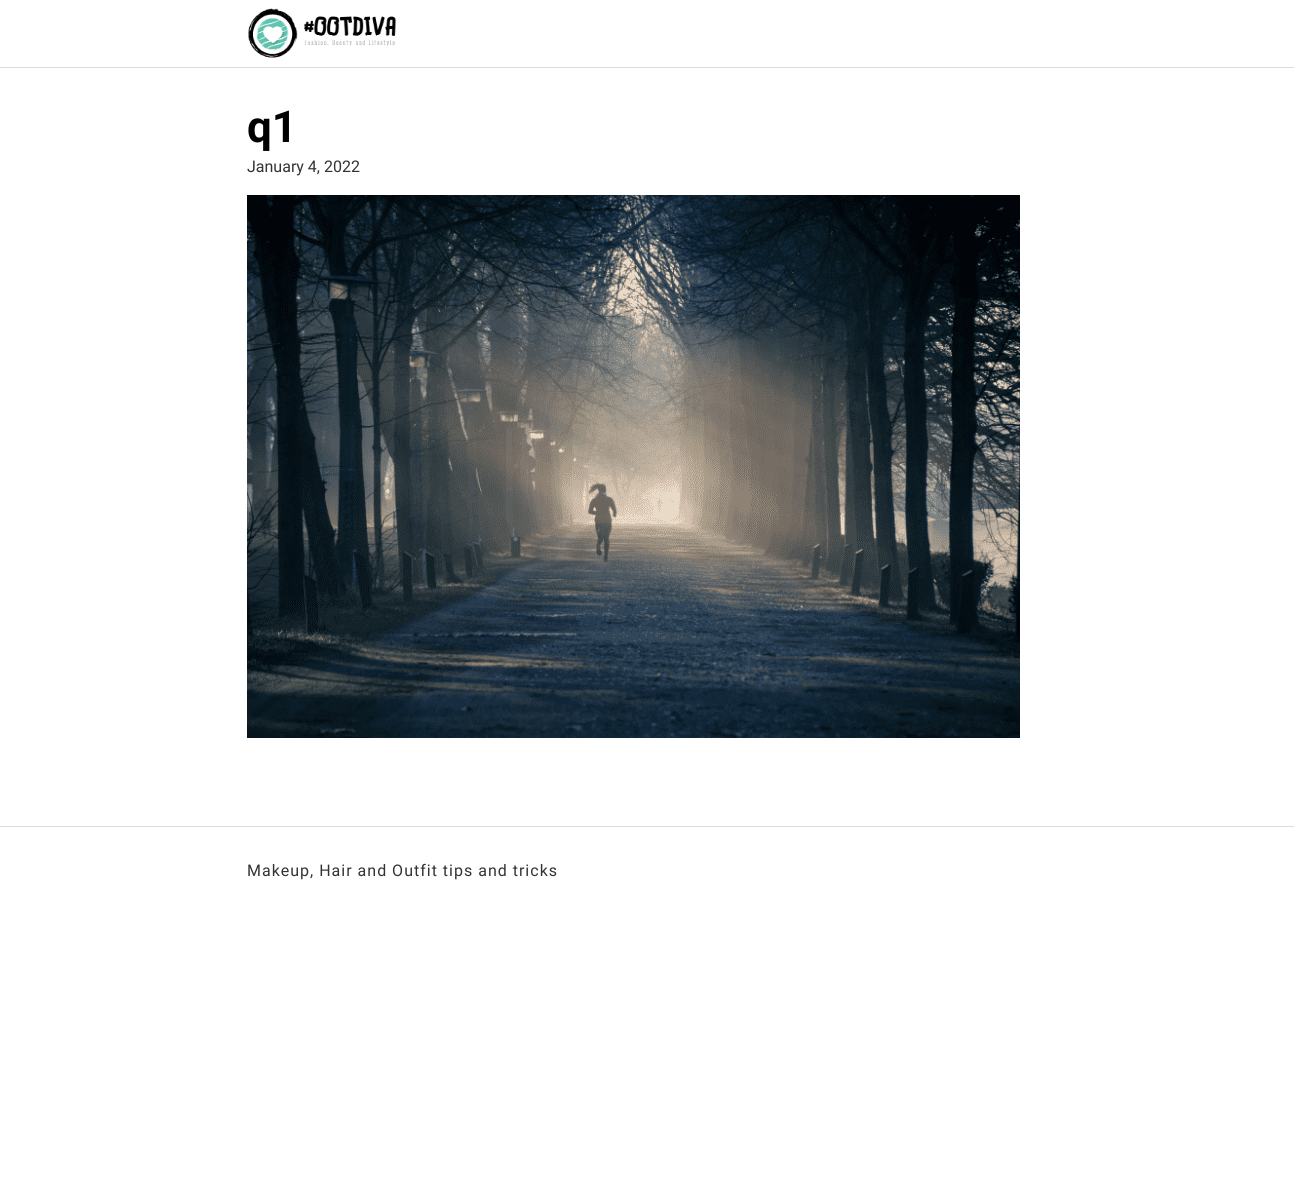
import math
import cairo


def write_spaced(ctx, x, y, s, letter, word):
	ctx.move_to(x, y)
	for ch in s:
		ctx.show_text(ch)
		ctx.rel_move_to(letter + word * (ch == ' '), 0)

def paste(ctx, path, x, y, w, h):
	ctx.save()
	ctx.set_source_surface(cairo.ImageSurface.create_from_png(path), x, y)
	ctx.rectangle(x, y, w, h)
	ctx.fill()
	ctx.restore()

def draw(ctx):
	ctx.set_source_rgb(1, 1, 1)
	ctx.paint()
	ctx.set_source_rgb(0.859, 0.859, 0.859)
	ctx.rectangle(0, 67, 1294, 1)
	ctx.fill()
	paste(ctx, 'media/1.png', 248, 8, 148, 50)
	ctx.select_font_face('Roboto', cairo.FONT_SLANT_NORMAL, cairo.FONT_WEIGHT_BOLD)
	ctx.set_font_size(44)
	ctx.set_source_rgb(0, 0, 0)
	ctx.move_to(247, 142)
	ctx.show_text('q1')
	ctx.select_font_face('Roboto')
	ctx.set_font_size(16)
	ctx.set_source_rgb(0.2, 0.2, 0.2)
	ctx.move_to(247, 172)
	ctx.show_text('January 4, 2022')
	paste(ctx, 'media/2.png', 247, 195, 773, 543)
	ctx.set_source_rgb(0.859, 0.859, 0.859)
	ctx.rectangle(0, 826, 1294, 1)
	ctx.fill()
	ctx.set_source_rgb(0.2, 0.2, 0.2)
	write_spaced(ctx, 247, 876, 'Makeup, Hair and Outfit tips and tricks', 1, 0)


surface = cairo.ImageSurface(cairo.FORMAT_RGB24, 1294, 1202)
ctx = cairo.Context(surface)
options = cairo.FontOptions()
options.set_hint_metrics(cairo.HINT_METRICS_OFF)
options.set_hint_style(cairo.HINT_STYLE_NONE)
ctx.set_font_options(options)
ctx.set_miter_limit(4)
draw(ctx)
surface.write_to_png('image.png')
